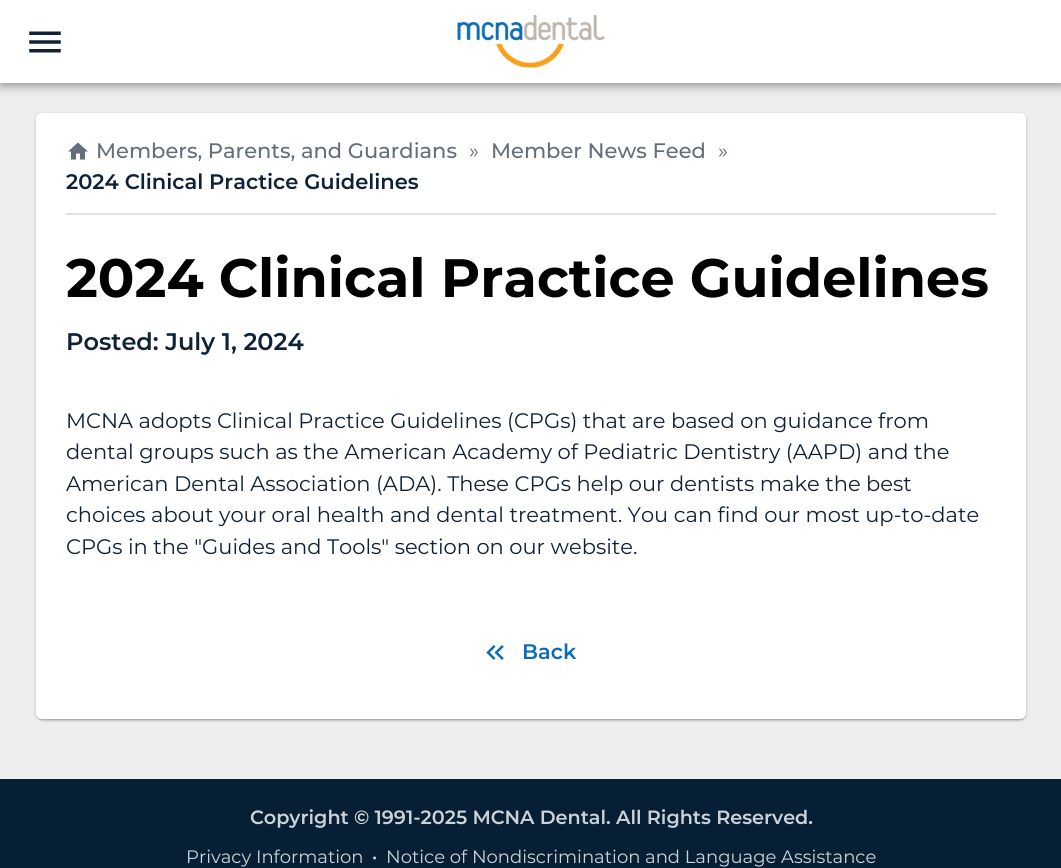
import math
import cairo


def round_path(ctx, x, y, w, h, r):
	ctx.new_sub_path()
	for i, (u, v) in enumerate([(x + w - r, y + h - r), (x + r, y + h - r), (x + r, y + r), (x + w - r, y + r)]):
		ctx.arc(u, v, r, i * math.pi / 2, (i + 1) * math.pi / 2)
	ctx.close_path()

def blur_box(ctx, x, y, w, h, r, blur, alpha):
	ctx.push_group_with_content(cairo.CONTENT_ALPHA)
	ctx.set_operator(cairo.OPERATOR_SOURCE)
	for i in range(15, -16, -2):
		e = blur * i / 6
		if min(w, h) + 2 * e > 0:
			ctx.set_source_rgba(0, 0, 0, alpha * math.erfc((i - 1) / 8.5) / 2)
			round_path(ctx, x - e, y - e, w + 2 * e, h + 2 * e, max(0, min(r + e + blur * .6, min(w, h) / 2 + e)))
			ctx.fill()
	ctx.mask(ctx.pop_group())

def paste(ctx, path, x, y, w, h):
	ctx.save()
	ctx.set_source_surface(cairo.ImageSurface.create_from_png(path), x, y)
	ctx.rectangle(x, y, w, h)
	ctx.fill()
	ctx.restore()

def draw(ctx):
	ctx.set_source_rgb(0.933, 0.933, 0.933)
	ctx.paint()
	ctx.set_source_rgb(0, 0, 0)
	blur_box(ctx, 0, 2, 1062, 82, 0, 7.5, 0.12)
	blur_box(ctx, 0, 6, 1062, 83, 0, 4, 0.14)
	blur_box(ctx, 2, 5, 1059, 79, 0, 3, 0.2)
	ctx.set_source_rgb(1, 1, 1)
	ctx.rectangle(0, 0, 1061, 83)
	ctx.fill()
	paste(ctx, 'media/1.png', 29, 31, 32, 22)
	paste(ctx, 'media/2.png', 457, 15, 148, 53)
	ctx.set_source_rgb(0, 0, 0)
	blur_box(ctx, 36, 114, 990, 606, 6, 2, 0.12)
	blur_box(ctx, 36, 114, 990, 606, 6, 1, 0.14)
	blur_box(ctx, 38, 117, 987, 603, 5, 1, 0.2)
	ctx.set_source_rgb(1, 1, 1)
	round_path(ctx, 36, 113, 990, 606, 6)
	ctx.fill()
	paste(ctx, 'media/3.png', 68, 142, 20, 18)
	ctx.select_font_face('Montserrat Medium')
	ctx.set_font_size(21)
	ctx.set_source_rgb(0.388, 0.431, 0.49)
	ctx.move_to(96, 158)
	ctx.show_text('Members, Parents, and Guardians')
	ctx.select_font_face('Montserrat')
	ctx.move_to(469, 158)
	ctx.show_text('»')
	ctx.select_font_face('Montserrat Medium')
	ctx.move_to(491, 158)
	ctx.show_text('Member News Feed')
	ctx.select_font_face('Montserrat')
	ctx.move_to(718, 158)
	ctx.show_text('»')
	ctx.select_font_face('Montserrat SemiBold')
	ctx.set_source_rgb(0.059, 0.129, 0.216)
	ctx.move_to(66, 189)
	ctx.show_text('2024 Clinical Practice Guidelines')
	ctx.set_source_rgb(0.878, 0.878, 0.878)
	ctx.rectangle(66, 213, 930, 2)
	ctx.fill()
	ctx.select_font_face('Montserrat', cairo.FONT_SLANT_NORMAL, cairo.FONT_WEIGHT_BOLD)
	ctx.set_font_size(54)
	ctx.set_source_rgb(0, 0, 0)
	ctx.move_to(66, 297)
	ctx.show_text('2024 Clinical Practice Guidelines')
	ctx.select_font_face('Montserrat SemiBold')
	ctx.set_font_size(24)
	ctx.set_source_rgb(0.059, 0.129, 0.216)
	ctx.move_to(66, 350)
	ctx.show_text('Posted: July 1, 2024')
	ctx.select_font_face('Montserrat')
	ctx.set_font_size(21)
	for x, y, s in [
		(66, 428, 'MCNA adopts Clinical Practice Guidelines (CPGs) that are based on guidance from'),
		(66, 459, 'dental groups such as the American Academy of Pediatric Dentistry (AAPD) and the'),
		(66, 491, 'American Dental Association (ADA). These CPGs help our dentists make the best'),
		(66, 522, 'choices about your oral health and dental treatment. You can find our most up-to-date'),
		(66, 554, 'CPGs in the "Guides and Tools" section on our website.'),
	]:
		ctx.move_to(x, y)
		ctx.show_text(s)
	paste(ctx, 'media/4.png', 486, 645, 18, 15)
	ctx.select_font_face('Montserrat SemiBold')
	ctx.set_source_rgb(0.051, 0.424, 0.714)
	ctx.move_to(522, 659)
	ctx.show_text('Back')
	ctx.set_source_rgb(0.027, 0.122, 0.208)
	ctx.rectangle(0, 779, 1061, 89)
	ctx.fill()
	ctx.set_font_size(19.2)
	ctx.set_source_rgb(0.804, 0.824, 0.839)
	ctx.move_to(250, 824)
	ctx.show_text('Copyright © 1991-2025 MCNA Dental. All Rights Reserved.')
	ctx.select_font_face('Montserrat')
	ctx.set_font_size(18)
	ctx.move_to(186, 863)
	ctx.show_text('Privacy Information')
	ctx.select_font_face('Montserrat SemiBold')
	ctx.move_to(372, 863)
	ctx.show_text('·')
	ctx.select_font_face('Montserrat')
	ctx.move_to(386, 863)
	ctx.show_text('Notice of Nondiscrimination and Language Assistance')


surface = cairo.ImageSurface(cairo.FORMAT_RGB24, 1061, 868)
ctx = cairo.Context(surface)
options = cairo.FontOptions()
options.set_hint_metrics(cairo.HINT_METRICS_OFF)
options.set_hint_style(cairo.HINT_STYLE_NONE)
ctx.set_font_options(options)
ctx.set_miter_limit(4)
draw(ctx)
surface.write_to_png('image.png')
